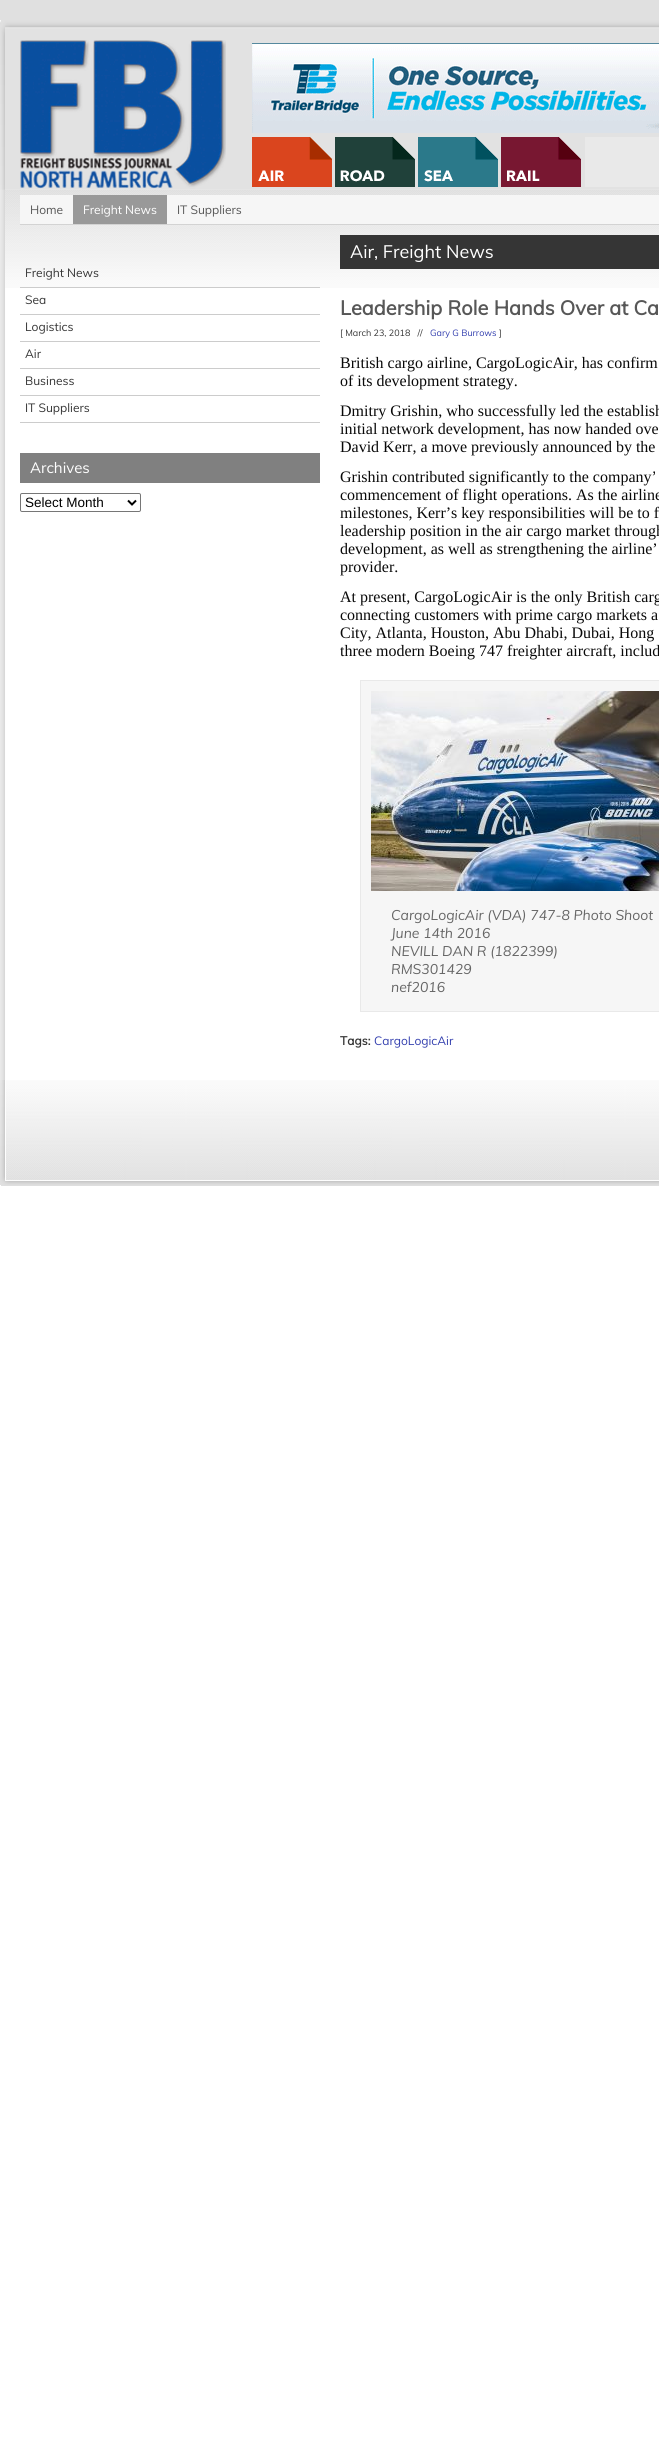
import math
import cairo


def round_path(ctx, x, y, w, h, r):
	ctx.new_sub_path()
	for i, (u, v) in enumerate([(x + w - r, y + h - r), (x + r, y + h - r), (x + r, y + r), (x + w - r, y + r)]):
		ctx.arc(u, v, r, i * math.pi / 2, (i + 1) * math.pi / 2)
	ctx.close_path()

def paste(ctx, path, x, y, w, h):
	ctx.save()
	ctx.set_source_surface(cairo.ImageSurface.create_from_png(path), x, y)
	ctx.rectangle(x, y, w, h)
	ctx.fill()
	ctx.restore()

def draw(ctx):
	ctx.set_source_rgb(1, 1, 1)
	ctx.paint()
	paste(ctx, 'media/1.png', 0, 0, 659, 190)
	paste(ctx, 'media/2.png', 0, 20, 659, 170)
	paste(ctx, 'media/3.png', 20, 40, 206, 149)
	paste(ctx, 'media/4.png', 252, 43, 407, 90)
	paste(ctx, 'media/5.png', 252, 137, 80, 50)
	paste(ctx, 'media/6.png', 335, 137, 80, 50)
	paste(ctx, 'media/7.png', 418, 137, 80, 50)
	paste(ctx, 'media/8.png', 501, 137, 80, 50)
	ctx.set_source_rgb(0.914, 0.914, 0.914)
	ctx.rectangle(585, 137, 74, 50)
	ctx.fill()
	paste(ctx, 'media/9.png', 0, 190, 659, 890)
	paste(ctx, 'media/10.png', 5, 190, 654, 98)
	ctx.set_source_rgb(0.961, 0.961, 0.961)
	ctx.rectangle(20, 195, 639, 29)
	ctx.fill()
	ctx.set_source_rgb(0.827, 0.827, 0.827)
	ctx.rectangle(20, 224, 639, 1)
	ctx.fill()
	ctx.select_font_face('Muli')
	ctx.set_font_size(12)
	ctx.set_source_rgb(0.341, 0.341, 0.341)
	ctx.move_to(30, 214)
	ctx.show_text('Home')
	ctx.set_source_rgb(0.6, 0.6, 0.6)
	ctx.rectangle(73, 195, 94, 29)
	ctx.fill()
	ctx.set_source_rgb(1, 1, 1)
	ctx.move_to(83, 214)
	ctx.show_text('Freight News')
	ctx.set_source_rgb(0.341, 0.341, 0.341)
	ctx.move_to(177, 214)
	ctx.show_text('IT Suppliers')
	ctx.set_source_rgb(0.8, 0.8, 0.8)
	ctx.rectangle(20, 287, 300, 1)
	ctx.fill()
	ctx.set_source_rgb(0.208, 0.208, 0.208)
	ctx.move_to(25, 277)
	ctx.show_text('Freight News')
	ctx.set_source_rgb(0.8, 0.8, 0.8)
	ctx.rectangle(20, 314, 300, 1)
	ctx.fill()
	ctx.set_source_rgb(0.208, 0.208, 0.208)
	ctx.move_to(25, 304)
	ctx.show_text('Sea')
	ctx.set_source_rgb(0.8, 0.8, 0.8)
	ctx.rectangle(20, 341, 300, 1)
	ctx.fill()
	ctx.set_source_rgb(0.208, 0.208, 0.208)
	ctx.move_to(25, 331)
	ctx.show_text('Logistics')
	ctx.set_source_rgb(0.8, 0.8, 0.8)
	ctx.rectangle(20, 368, 300, 1)
	ctx.fill()
	ctx.set_source_rgb(0.208, 0.208, 0.208)
	ctx.move_to(25, 358)
	ctx.show_text('Air')
	ctx.set_source_rgb(0.8, 0.8, 0.8)
	ctx.rectangle(20, 395, 300, 1)
	ctx.fill()
	ctx.set_source_rgb(0.208, 0.208, 0.208)
	ctx.move_to(25, 385)
	ctx.show_text('Business')
	ctx.set_source_rgb(0.8, 0.8, 0.8)
	ctx.rectangle(20, 422, 300, 1)
	ctx.fill()
	ctx.set_source_rgb(0.208, 0.208, 0.208)
	ctx.move_to(25, 412)
	ctx.show_text('IT Suppliers')
	ctx.set_source_rgb(0.502, 0.502, 0.502)
	ctx.rectangle(20, 453, 300, 30)
	ctx.fill()
	ctx.set_font_size(15)
	ctx.set_source_rgb(1, 1, 1)
	ctx.move_to(30, 473)
	ctx.show_text('Archives')
	round_path(ctx, 20.5, 493.5, 120, 18, 1.5)
	ctx.set_source_rgb(0.463, 0.463, 0.463)
	ctx.set_line_width(1)
	ctx.stroke()
	ctx.new_path()
	ctx.move_to(128, 500.5)
	ctx.line_to(132, 504.5)
	ctx.line_to(136, 500.5)
	ctx.set_source_rgb(0, 0, 0)
	ctx.set_line_width(2)
	ctx.stroke()
	ctx.select_font_face('Liberation Sans')
	ctx.set_font_size(13.5)
	ctx.move_to(25, 507)
	ctx.show_text('Select Month')
	ctx.set_source_rgb(0.208, 0.208, 0.208)
	ctx.rectangle(340, 235, 319, 34)
	ctx.fill()
	ctx.select_font_face('Muli')
	ctx.set_font_size(18)
	ctx.set_source_rgb(1, 1, 1)
	ctx.move_to(350, 258)
	ctx.show_text('Air, Freight News')
	ctx.select_font_face('Muli', cairo.FONT_SLANT_NORMAL, cairo.FONT_WEIGHT_BOLD)
	ctx.set_font_size(20)
	ctx.set_source_rgb(0.341, 0.341, 0.341)
	ctx.move_to(340, 315)
	ctx.show_text('Leadership Role Hands Over at Ca')
	ctx.select_font_face('Muli')
	ctx.set_font_size(9)
	ctx.set_source_rgb(0.208, 0.208, 0.208)
	ctx.move_to(340, 336)
	ctx.show_text('[ March 23, 2018   //')
	ctx.set_source_rgb(0.196, 0.243, 0.682)
	ctx.move_to(430, 336)
	ctx.show_text('Gary G Burrows')
	ctx.set_source_rgb(0.208, 0.208, 0.208)
	ctx.move_to(499, 336)
	ctx.show_text(']')
	ctx.select_font_face('Liberation Serif')
	ctx.set_font_size(16)
	ctx.set_source_rgb(0.039, 0.039, 0.039)
	for x, y, s in [
		(340, 368, 'British cargo airline, CargoLogicAir, has confirm'),
		(340, 386, 'of its development strategy.'),
		(340, 416, 'Dmitry Grishin, who successfully led the establish'),
		(340, 434, 'initial network development, has now handed ove'),
		(340, 452, 'David Kerr, a move previously announced by the'),
		(340, 482, 'Grishin contributed significantly to the company’'),
		(340, 500, 'commencement of flight operations. As the airline'),
		(340, 518, 'milestones, Kerr’s key responsibilities will be to f'),
		(340, 536, 'leadership position in the air cargo market through'),
		(340, 554, 'development, as well as strengthening the airline’'),
		(340, 572, 'provider.'),
		(340, 602, 'At present, CargoLogicAir is the only British carg'),
		(340, 620, 'connecting customers with prime cargo markets a'),
		(340, 638, 'City, Atlanta, Houston, Abu Dhabi, Dubai, Hong'),
		(340, 656, 'three modern Boeing 747 freighter aircraft, includ'),
	]:
		ctx.move_to(x, y)
		ctx.show_text(s)
	ctx.set_source_rgb(0.961, 0.961, 0.961)
	ctx.rectangle(360.5, 680.5, 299, 331)
	ctx.fill_preserve()
	ctx.set_source_rgb(0.914, 0.914, 0.914)
	ctx.set_line_width(1)
	ctx.stroke()
	paste(ctx, 'media/11.png', 371, 691, 288, 200)
	ctx.select_font_face('Muli', cairo.FONT_SLANT_ITALIC)
	ctx.set_font_size(14)
	ctx.set_source_rgb(0.4, 0.4, 0.4)
	for x, y, s in [
		(391, 920, 'CargoLogicAir (VDA) 747-8 Photo Shoot'),
		(391, 938, 'June 14th 2016'),
		(391, 956, 'NEVILL DAN R (1822399)'),
		(391, 974, 'RMS301429'),
		(391, 992, 'nef2016'),
	]:
		ctx.move_to(x, y)
		ctx.show_text(s)
	ctx.select_font_face('Muli', cairo.FONT_SLANT_NORMAL, cairo.FONT_WEIGHT_BOLD)
	ctx.set_font_size(12)
	ctx.set_source_rgb(0.208, 0.208, 0.208)
	ctx.move_to(340, 1045)
	ctx.show_text('Tags:')
	ctx.select_font_face('Muli')
	ctx.set_source_rgb(0.196, 0.243, 0.682)
	ctx.move_to(374, 1045)
	ctx.show_text('CargoLogicAir')
	paste(ctx, 'media/12.png', 0, 1080, 659, 106)


surface = cairo.ImageSurface(cairo.FORMAT_RGB24, 659, 2442)
ctx = cairo.Context(surface)
options = cairo.FontOptions()
options.set_hint_metrics(cairo.HINT_METRICS_OFF)
options.set_hint_style(cairo.HINT_STYLE_NONE)
ctx.set_font_options(options)
ctx.set_miter_limit(4)
draw(ctx)
surface.write_to_png('image.png')
